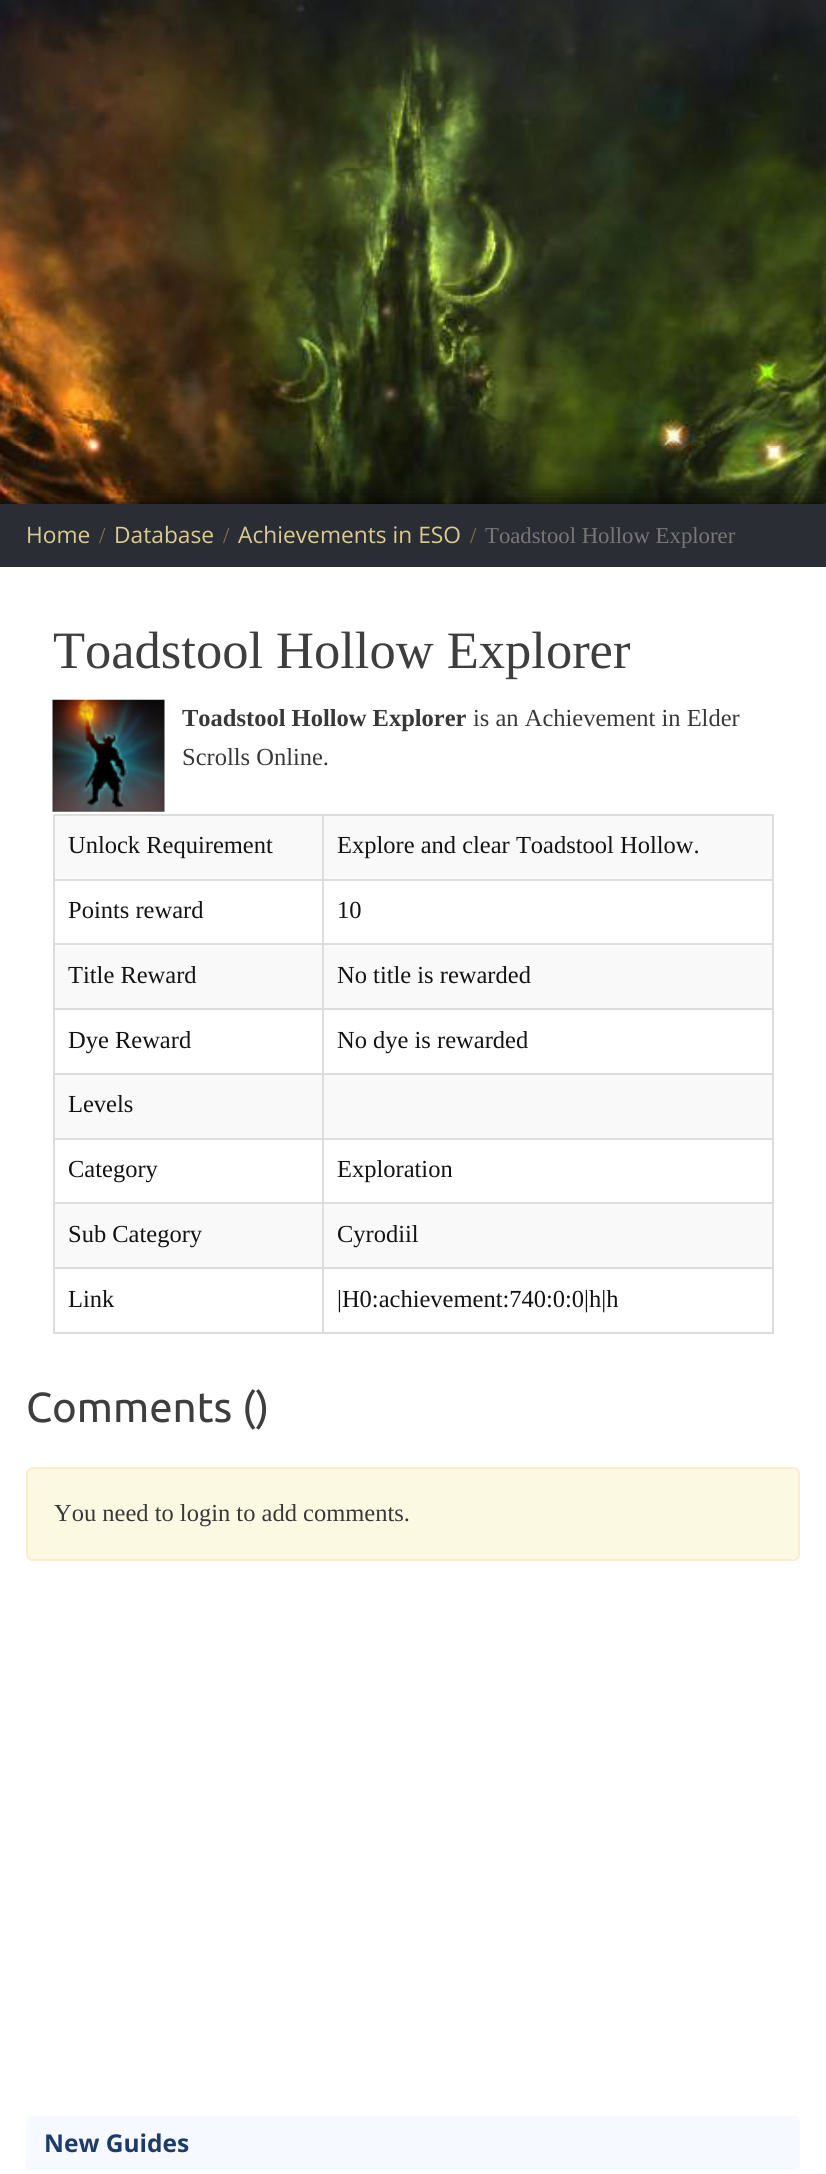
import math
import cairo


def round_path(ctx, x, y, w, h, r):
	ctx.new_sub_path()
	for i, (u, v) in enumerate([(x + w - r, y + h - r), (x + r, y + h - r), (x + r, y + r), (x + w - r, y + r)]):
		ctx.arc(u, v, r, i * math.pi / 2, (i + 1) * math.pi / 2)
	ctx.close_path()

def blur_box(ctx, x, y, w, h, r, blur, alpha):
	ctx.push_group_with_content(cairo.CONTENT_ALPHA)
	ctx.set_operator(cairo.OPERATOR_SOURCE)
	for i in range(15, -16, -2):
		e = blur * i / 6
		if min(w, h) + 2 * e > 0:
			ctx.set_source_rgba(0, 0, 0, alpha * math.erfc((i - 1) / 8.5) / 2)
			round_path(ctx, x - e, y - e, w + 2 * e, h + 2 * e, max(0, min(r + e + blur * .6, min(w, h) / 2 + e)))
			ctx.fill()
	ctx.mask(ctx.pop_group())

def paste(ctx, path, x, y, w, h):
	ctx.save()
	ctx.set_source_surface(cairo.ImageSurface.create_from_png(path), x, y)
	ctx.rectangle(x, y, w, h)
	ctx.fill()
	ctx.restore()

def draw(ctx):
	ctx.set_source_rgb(1, 1, 1)
	ctx.paint()
	paste(ctx, 'media/1.png', 0, 0, 826, 504)
	ctx.set_source_rgb(0, 0, 0)
	blur_box(ctx, 0, 504, 826, 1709, 0, 13, 1)
	ctx.set_source_rgb(1, 1, 1)
	ctx.rectangle(0, 567, 826, 1607)
	ctx.fill()
	ctx.set_source_rgb(0.169, 0.176, 0.208)
	ctx.rectangle(0, 504, 826, 63)
	ctx.fill()
	ctx.select_font_face('Open Sans')
	ctx.set_font_size(22.75)
	ctx.set_source_rgb(0.859, 0.796, 0.565)
	ctx.move_to(26, 543)
	ctx.show_text('Home')
	ctx.select_font_face('Liberation Serif')
	ctx.set_source_rgb(0.514, 0.451, 0.31)
	ctx.move_to(99, 543)
	ctx.show_text('/')
	ctx.select_font_face('Open Sans')
	ctx.set_source_rgb(0.859, 0.796, 0.565)
	ctx.move_to(114, 543)
	ctx.show_text('Database')
	ctx.select_font_face('Liberation Serif')
	ctx.set_source_rgb(0.514, 0.451, 0.31)
	ctx.move_to(223, 543)
	ctx.show_text('/')
	ctx.select_font_face('Open Sans')
	ctx.set_source_rgb(0.859, 0.796, 0.565)
	ctx.move_to(238, 543)
	ctx.show_text('Achievements in ESO')
	ctx.select_font_face('Liberation Serif')
	ctx.set_source_rgb(0.514, 0.451, 0.31)
	ctx.move_to(470, 543)
	ctx.show_text('/')
	ctx.set_source_rgb(0.467, 0.467, 0.467)
	ctx.move_to(485, 543)
	ctx.show_text('Toadstool Hollow Explorer')
	ctx.set_font_size(52.5)
	ctx.set_source_rgb(0.243, 0.243, 0.243)
	ctx.move_to(53, 668)
	ctx.show_text('Toadstool Hollow Explorer')
	paste(ctx, 'media/2.png', 52, 699, 113, 113)
	ctx.select_font_face('Liberation Serif', cairo.FONT_SLANT_NORMAL, cairo.FONT_WEIGHT_BOLD)
	ctx.set_font_size(24.5)
	ctx.set_source_rgb(0.22, 0.22, 0.22)
	ctx.move_to(182, 726)
	ctx.show_text('Toadstool Hollow Explorer')
	ctx.select_font_face('Liberation Serif')
	ctx.move_to(473, 726)
	ctx.show_text('is an Achievement in Elder')
	ctx.move_to(182, 765)
	ctx.show_text('Scrolls Online.')
	ctx.set_source_rgb(0.867, 0.867, 0.867)
	ctx.rectangle(53, 814, 721, 2)
	ctx.rectangle(772, 814, 2, 520)
	ctx.rectangle(53, 1332, 721, 2)
	ctx.rectangle(53, 814, 2, 520)
	ctx.fill()
	ctx.set_source_rgb(0.976, 0.976, 0.976)
	ctx.rectangle(55, 816, 717, 63)
	ctx.fill()
	ctx.set_source_rgb(0.075, 0.075, 0.075)
	ctx.move_to(68, 853)
	ctx.show_text('Unlock Requirement')
	ctx.set_source_rgb(0.867, 0.867, 0.867)
	ctx.rectangle(322, 879, 452, 2)
	ctx.rectangle(322, 943, 452, 2)
	ctx.fill()
	ctx.set_source_rgb(0.976, 0.976, 0.976)
	ctx.rectangle(55, 945, 717, 63)
	ctx.fill()
	ctx.set_source_rgb(0.867, 0.867, 0.867)
	ctx.rectangle(322, 1008, 452, 2)
	ctx.rectangle(322, 1073, 452, 2)
	ctx.fill()
	ctx.set_source_rgb(0.976, 0.976, 0.976)
	ctx.rectangle(55, 1075, 717, 63)
	ctx.fill()
	ctx.set_source_rgb(0.867, 0.867, 0.867)
	ctx.rectangle(322, 1138, 452, 2)
	ctx.rectangle(322, 1202, 452, 2)
	ctx.fill()
	ctx.set_source_rgb(0.976, 0.976, 0.976)
	ctx.rectangle(55, 1204, 717, 63)
	ctx.fill()
	ctx.set_source_rgb(0.867, 0.867, 0.867)
	ctx.rectangle(322, 1267, 452, 2)
	ctx.rectangle(322, 1267, 2, 67)
	ctx.rectangle(53, 1267, 271, 2)
	ctx.rectangle(322, 1202, 2, 67)
	ctx.rectangle(53, 1202, 271, 2)
	ctx.rectangle(322, 1138, 2, 66)
	ctx.rectangle(53, 1138, 271, 2)
	ctx.rectangle(322, 1073, 2, 66)
	ctx.rectangle(53, 1073, 271, 2)
	ctx.rectangle(322, 1008, 2, 67)
	ctx.rectangle(53, 1008, 271, 2)
	ctx.rectangle(322, 943, 2, 67)
	ctx.rectangle(53, 943, 271, 2)
	ctx.rectangle(322, 879, 2, 66)
	ctx.rectangle(53, 879, 271, 2)
	ctx.rectangle(322, 814, 2, 66)
	ctx.fill()
	ctx.set_source_rgb(0.075, 0.075, 0.075)
	for x, y, s in [
		(337, 853, 'Explore and clear Toadstool Hollow.'),
		(68, 918, 'Points reward'),
		(337, 918, '10'),
		(68, 983, 'Title Reward'),
		(337, 983, 'No title is rewarded'),
		(68, 1048, 'Dye Reward'),
		(337, 1048, 'No dye is rewarded'),
		(68, 1112, 'Levels'),
		(68, 1177, 'Category'),
		(337, 1177, 'Exploration'),
		(68, 1242, 'Sub Category'),
		(337, 1242, 'Cyrodiil'),
		(68, 1307, 'Link'),
		(337, 1307, '|H0:achievement:740:0:0|h|h'),
	]:
		ctx.move_to(x, y)
		ctx.show_text(s)
	ctx.select_font_face('Ubuntu')
	ctx.set_font_size(42)
	ctx.set_source_rgb(0.243, 0.243, 0.243)
	ctx.move_to(26, 1422)
	ctx.show_text('Comments ()')
	ctx.set_source_rgb(0.988, 0.973, 0.89)
	round_path(ctx, 27, 1468, 772, 92, 6)
	ctx.fill_preserve()
	ctx.set_source_rgb(0.98, 0.922, 0.8)
	ctx.stroke()
	ctx.select_font_face('Liberation Serif')
	ctx.set_font_size(24.5)
	ctx.set_source_rgb(0.22, 0.22, 0.22)
	ctx.move_to(54, 1521)
	ctx.show_text('You need to login to add comments.')
	ctx.set_source_rgb(0.961, 0.976, 1)
	round_path(ctx, 26, 2116, 774, 54, 5)
	ctx.fill()
	ctx.select_font_face('Open Sans', cairo.FONT_SLANT_NORMAL, cairo.FONT_WEIGHT_BOLD)
	ctx.set_source_rgb(0.106, 0.235, 0.412)
	ctx.move_to(44, 2152)
	ctx.show_text('New Guides')


surface = cairo.ImageSurface(cairo.FORMAT_RGB24, 826, 2174)
ctx = cairo.Context(surface)
options = cairo.FontOptions()
options.set_hint_metrics(cairo.HINT_METRICS_OFF)
options.set_hint_style(cairo.HINT_STYLE_NONE)
ctx.set_font_options(options)
ctx.set_miter_limit(4)
draw(ctx)
surface.write_to_png('image.png')
